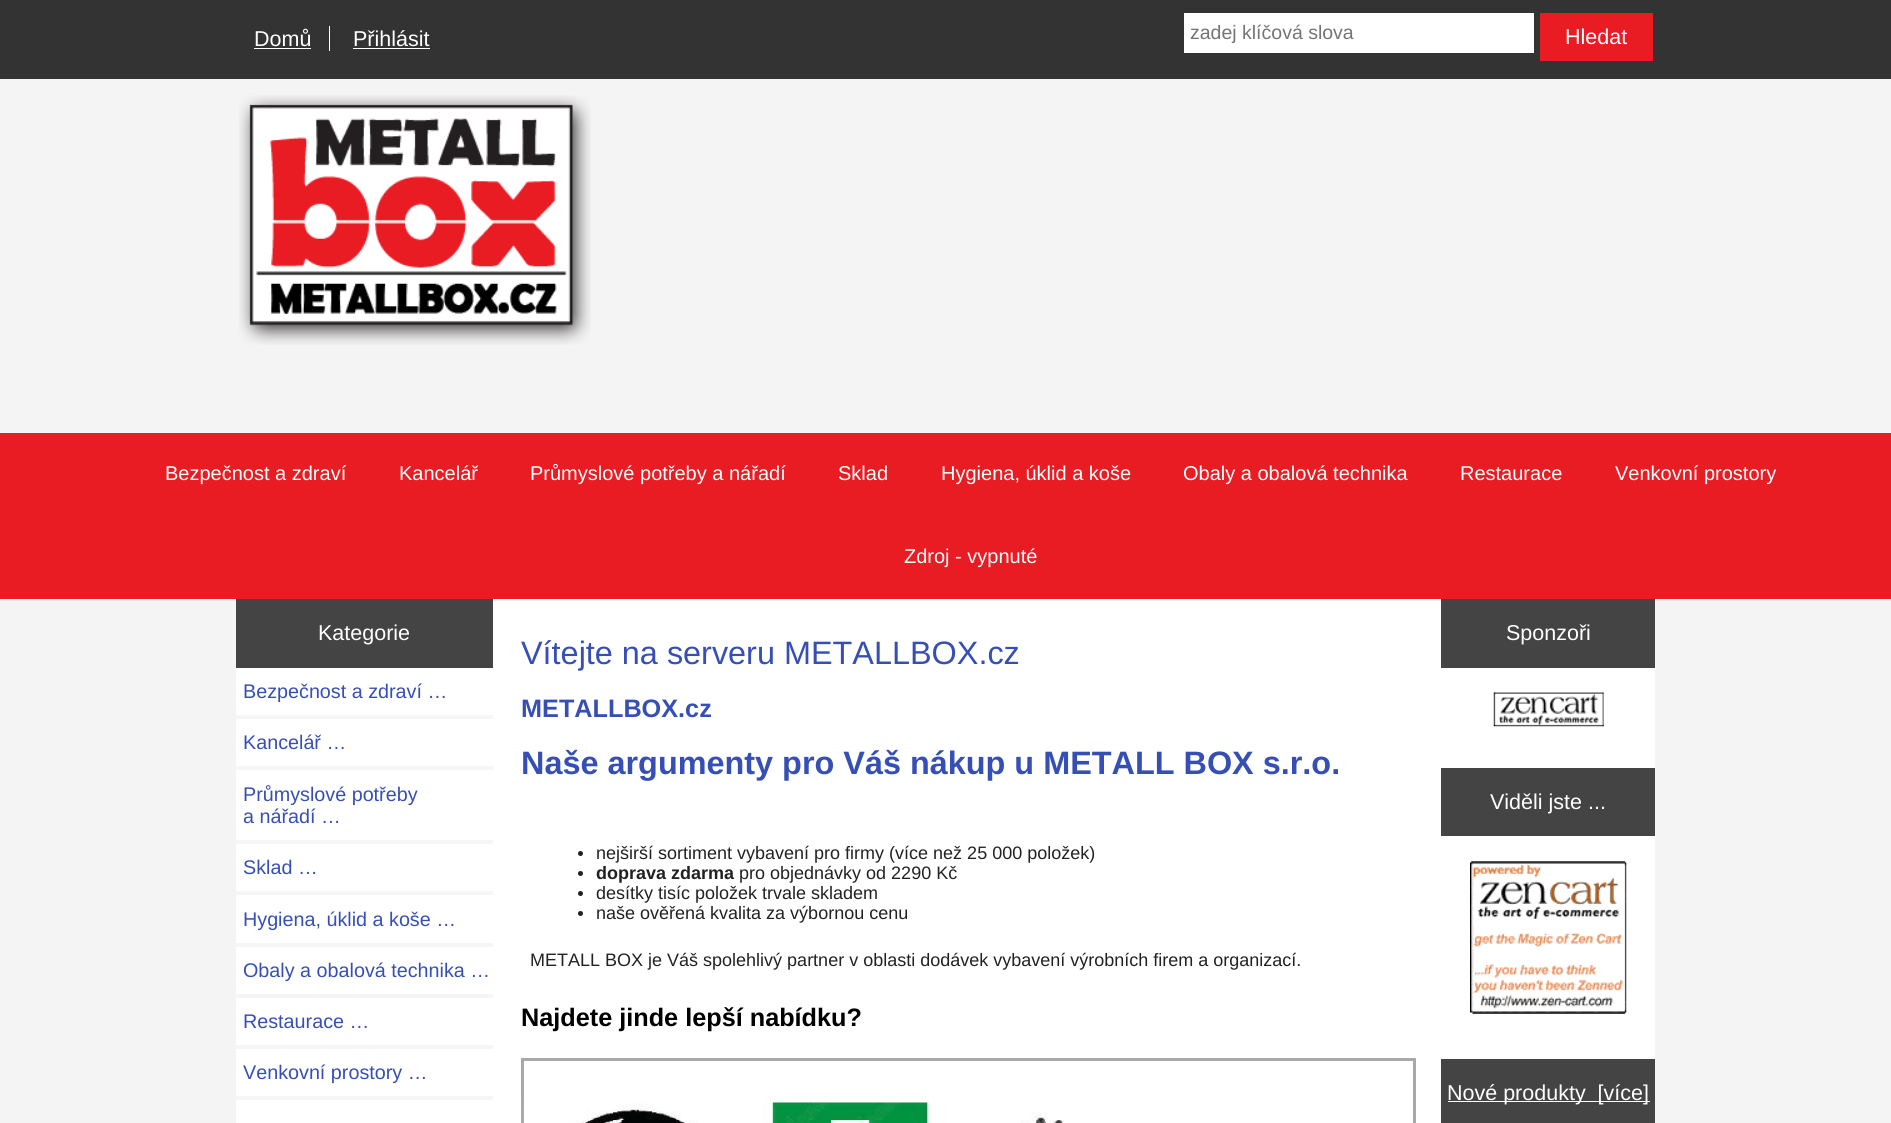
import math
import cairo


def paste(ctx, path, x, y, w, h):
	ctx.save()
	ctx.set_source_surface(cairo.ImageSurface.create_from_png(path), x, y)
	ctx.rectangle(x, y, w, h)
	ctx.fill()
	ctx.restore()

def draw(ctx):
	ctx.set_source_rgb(0.957, 0.957, 0.957)
	ctx.paint()
	ctx.set_source_rgb(0.2, 0.2, 0.2)
	ctx.rectangle(0, 0, 1891, 79)
	ctx.fill()
	ctx.select_font_face('Liberation Sans')
	ctx.set_font_size(21.5)
	ctx.set_source_rgb(1, 1, 1)
	ctx.move_to(254, 46)
	ctx.show_text('Domů')
	ctx.rectangle(329, 26, 1, 25)
	ctx.fill()
	ctx.rectangle(254, 48, 57, 1)
	ctx.fill()
	ctx.move_to(353, 46)
	ctx.show_text('Přihlásit')
	ctx.rectangle(353, 48, 77, 1)
	ctx.fill()
	ctx.rectangle(1184, 13, 350, 40)
	ctx.fill()
	ctx.set_font_size(19.5)
	ctx.set_source_rgb(0.459, 0.459, 0.459)
	ctx.move_to(1190, 39)
	ctx.show_text('zadej klíčová slova')
	ctx.set_source_rgb(0.914, 0.11, 0.141)
	ctx.rectangle(1540, 13, 113, 48)
	ctx.fill()
	ctx.set_font_size(21.5)
	ctx.set_source_rgb(1, 1, 1)
	ctx.move_to(1565, 44)
	ctx.show_text('Hledat')
	paste(ctx, 'media/1.png', 239, 95, 352, 250)
	ctx.set_source_rgb(0.914, 0.11, 0.141)
	ctx.rectangle(0, 433, 1891, 166)
	ctx.fill()
	ctx.set_font_size(20)
	ctx.set_source_rgb(1, 1, 1)
	for x, y, s in [
		(165, 480, 'Bezpečnost a zdraví'),
		(399, 480, 'Kancelář'),
		(530, 480, 'Průmyslové potřeby a nářadí'),
		(838, 480, 'Sklad'),
		(941, 480, 'Hygiena, úklid a koše'),
		(1183, 480, 'Obaly a obalová technika'),
		(1460, 480, 'Restaurace'),
		(1615, 480, 'Venkovní prostory'),
		(904, 563, 'Zdroj - vypnuté'),
	]:
		ctx.move_to(x, y)
		ctx.show_text(s)
	ctx.rectangle(236, 599, 1419, 524)
	ctx.fill()
	ctx.set_source_rgb(0.267, 0.267, 0.267)
	ctx.rectangle(236, 599, 257, 69)
	ctx.fill()
	ctx.set_font_size(21.5)
	ctx.set_source_rgb(1, 1, 1)
	ctx.move_to(318, 640)
	ctx.show_text('Kategorie')
	ctx.set_source_rgb(0.961, 0.961, 0.961)
	ctx.rectangle(236, 715, 257, 4)
	ctx.fill()
	ctx.set_font_size(19.75)
	ctx.set_source_rgb(0.212, 0.31, 0.71)
	ctx.move_to(243, 698)
	ctx.show_text('Bezpečnost a zdraví …')
	ctx.set_source_rgb(0.961, 0.961, 0.961)
	ctx.rectangle(236, 766, 257, 4)
	ctx.fill()
	ctx.set_source_rgb(0.212, 0.31, 0.71)
	ctx.move_to(243, 749)
	ctx.show_text('Kancelář …')
	ctx.set_source_rgb(0.961, 0.961, 0.961)
	ctx.rectangle(236, 840, 257, 4)
	ctx.fill()
	ctx.set_source_rgb(0.212, 0.31, 0.71)
	ctx.move_to(243, 801)
	ctx.show_text('Průmyslové potřeby')
	ctx.move_to(243, 823)
	ctx.show_text('a nářadí …')
	ctx.set_source_rgb(0.961, 0.961, 0.961)
	ctx.rectangle(236, 891, 257, 4)
	ctx.fill()
	ctx.set_source_rgb(0.212, 0.31, 0.71)
	ctx.move_to(243, 874)
	ctx.show_text('Sklad …')
	ctx.set_source_rgb(0.961, 0.961, 0.961)
	ctx.rectangle(236, 943, 257, 4)
	ctx.fill()
	ctx.set_source_rgb(0.212, 0.31, 0.71)
	ctx.move_to(243, 926)
	ctx.show_text('Hygiena, úklid a koše …')
	ctx.set_source_rgb(0.961, 0.961, 0.961)
	ctx.rectangle(236, 994, 257, 4)
	ctx.fill()
	ctx.set_source_rgb(0.212, 0.31, 0.71)
	ctx.move_to(243, 977)
	ctx.show_text('Obaly a obalová technika …')
	ctx.set_source_rgb(0.961, 0.961, 0.961)
	ctx.rectangle(236, 1045, 257, 4)
	ctx.fill()
	ctx.set_source_rgb(0.212, 0.31, 0.71)
	ctx.move_to(243, 1028)
	ctx.show_text('Restaurace …')
	ctx.set_source_rgb(0.961, 0.961, 0.961)
	ctx.rectangle(236, 1096, 257, 4)
	ctx.fill()
	ctx.set_source_rgb(0.212, 0.31, 0.71)
	ctx.move_to(243, 1079)
	ctx.show_text('Venkovní prostory …')
	ctx.set_font_size(32.4)
	ctx.move_to(521, 664)
	ctx.show_text('Vítejte na serveru METALLBOX.cz')
	ctx.select_font_face('Liberation Sans', cairo.FONT_SLANT_NORMAL, cairo.FONT_WEIGHT_BOLD)
	ctx.set_font_size(25.25)
	ctx.move_to(521, 717)
	ctx.show_text('METALLBOX.cz')
	ctx.set_font_size(32.4)
	ctx.move_to(521, 774)
	ctx.show_text('Naše argumenty pro Váš nákup u METALL BOX s.r.o.')
	ctx.set_source_rgb(0.133, 0.133, 0.133)
	ctx.new_path()
	ctx.arc(580.5, 853.5, 2.5, 0, 2 * math.pi)
	ctx.fill()
	ctx.select_font_face('Liberation Sans')
	ctx.set_font_size(18)
	ctx.move_to(596, 859)
	ctx.show_text('nejširší sortiment vybavení pro firmy (více než 25 000 položek)')
	ctx.new_path()
	ctx.arc(580.5, 873.5, 2.5, 0, 2 * math.pi)
	ctx.fill()
	ctx.select_font_face('Liberation Sans', cairo.FONT_SLANT_NORMAL, cairo.FONT_WEIGHT_BOLD)
	ctx.move_to(596, 879)
	ctx.show_text('doprava zdarma')
	ctx.select_font_face('Liberation Sans')
	ctx.move_to(739, 879)
	ctx.show_text('pro objednávky od 2290 Kč')
	ctx.new_path()
	ctx.arc(580.5, 893.5, 2.5, 0, 2 * math.pi)
	ctx.fill()
	ctx.move_to(596, 899)
	ctx.show_text('desítky tisíc položek trvale skladem')
	ctx.new_path()
	ctx.arc(580.5, 913.5, 2.5, 0, 2 * math.pi)
	ctx.fill()
	ctx.move_to(596, 919)
	ctx.show_text('naše ověřená kvalita za výbornou cenu')
	ctx.move_to(530, 966)
	ctx.show_text('METALL BOX je Váš spolehlivý partner v oblasti dodávek vybavení výrobních firem a organizací.')
	ctx.select_font_face('Liberation Sans', cairo.FONT_SLANT_NORMAL, cairo.FONT_WEIGHT_BOLD)
	ctx.set_font_size(25.25)
	ctx.set_source_rgb(0, 0, 0)
	ctx.move_to(521, 1026)
	ctx.show_text('Najdete jinde lepší nabídku?')
	ctx.rectangle(522.5, 1059.5, 892, 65)
	ctx.set_source_rgb(0.663, 0.663, 0.663)
	ctx.set_line_width(3)
	ctx.stroke()
	paste(ctx, 'media/2.png', 523, 1103, 175, 20)
	paste(ctx, 'media/3.png', 763, 1102, 167, 21)
	paste(ctx, 'media/4.png', 1021, 1111, 43, 12)
	ctx.set_source_rgb(0.267, 0.267, 0.267)
	ctx.rectangle(1441, 599, 214, 69)
	ctx.fill()
	ctx.select_font_face('Liberation Sans')
	ctx.set_font_size(21.5)
	ctx.set_source_rgb(1, 1, 1)
	ctx.move_to(1506, 640)
	ctx.show_text('Sponzoři')
	paste(ctx, 'media/5.png', 1493, 692, 111, 35)
	ctx.set_source_rgb(0.267, 0.267, 0.267)
	ctx.rectangle(1441, 768, 214, 68)
	ctx.fill()
	ctx.set_source_rgb(1, 1, 1)
	ctx.move_to(1490, 809)
	ctx.show_text('Viděli jste ...')
	paste(ctx, 'media/6.png', 1470, 861, 157, 153)
	ctx.set_source_rgb(0.267, 0.267, 0.267)
	ctx.rectangle(1441, 1059, 214, 64)
	ctx.fill()
	ctx.set_source_rgb(1, 1, 1)
	ctx.rectangle(1448, 1101, 202, 1)
	ctx.fill()
	ctx.move_to(1447, 1100)
	ctx.show_text('Nové produkty  [více]')


surface = cairo.ImageSurface(cairo.FORMAT_RGB24, 1891, 1123)
ctx = cairo.Context(surface)
options = cairo.FontOptions()
options.set_hint_metrics(cairo.HINT_METRICS_OFF)
options.set_hint_style(cairo.HINT_STYLE_NONE)
ctx.set_font_options(options)
ctx.set_miter_limit(4)
draw(ctx)
surface.write_to_png('image.png')
